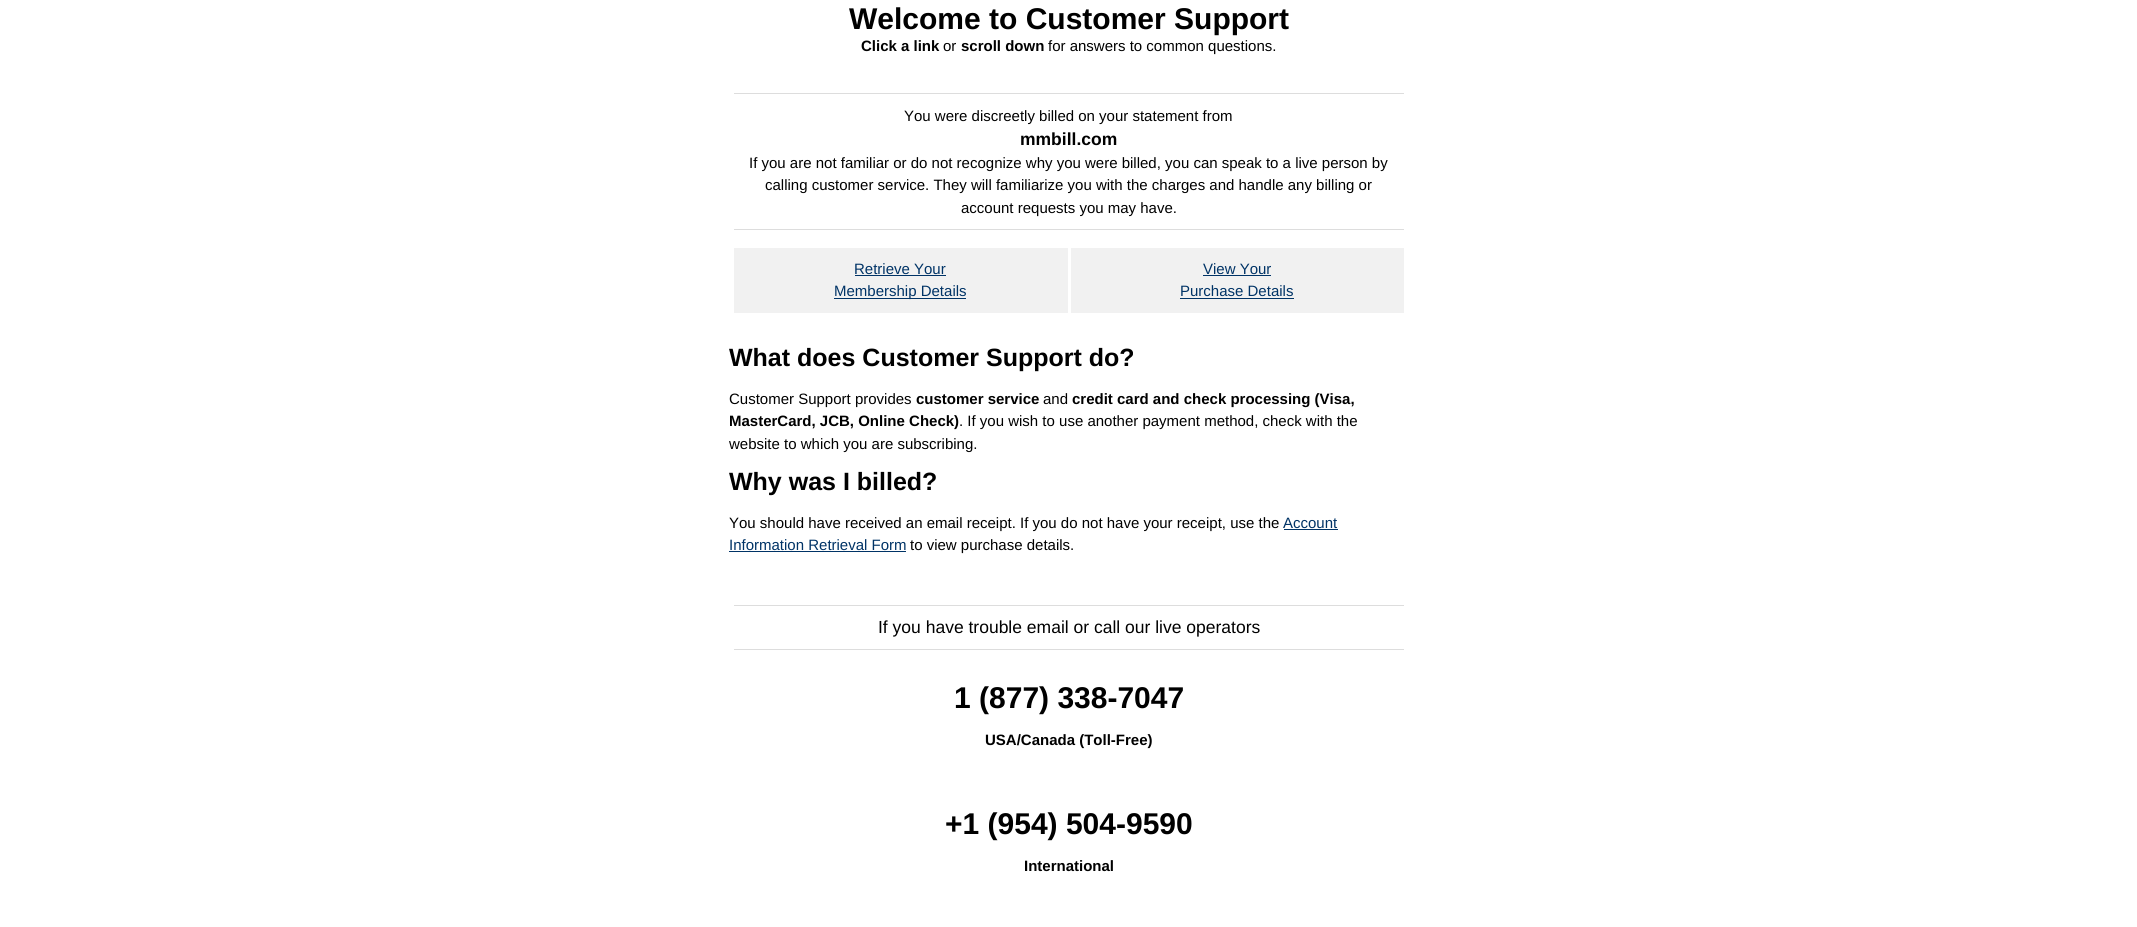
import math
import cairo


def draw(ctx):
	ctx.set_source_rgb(1, 1, 1)
	ctx.paint()
	ctx.select_font_face('Liberation Sans', cairo.FONT_SLANT_NORMAL, cairo.FONT_WEIGHT_BOLD)
	ctx.set_font_size(30)
	ctx.set_source_rgb(0, 0, 0)
	ctx.move_to(849, 29)
	ctx.show_text('Welcome to Customer Support')
	ctx.set_font_size(15)
	ctx.move_to(861, 51)
	ctx.show_text('Click a link')
	ctx.select_font_face('Liberation Sans')
	ctx.move_to(943, 51)
	ctx.show_text('or')
	ctx.select_font_face('Liberation Sans', cairo.FONT_SLANT_NORMAL, cairo.FONT_WEIGHT_BOLD)
	ctx.move_to(961, 51)
	ctx.show_text('scroll down')
	ctx.select_font_face('Liberation Sans')
	ctx.move_to(1048, 51)
	ctx.show_text('for answers to common questions.')
	ctx.set_source_rgb(0.867, 0.867, 0.867)
	ctx.rectangle(734, 93, 670, 1)
	ctx.fill()
	ctx.rectangle(734, 229, 670, 1)
	ctx.fill()
	ctx.set_source_rgb(0, 0, 0)
	ctx.move_to(904, 121)
	ctx.show_text('You were discreetly billed on your statement from')
	ctx.select_font_face('Liberation Sans', cairo.FONT_SLANT_NORMAL, cairo.FONT_WEIGHT_BOLD)
	ctx.set_font_size(17.5)
	ctx.move_to(1020, 145)
	ctx.show_text('mmbill.com')
	ctx.select_font_face('Liberation Sans')
	ctx.set_font_size(15)
	for x, y, s in [
		(749, 168, 'If you are not familiar or do not recognize why you were billed, you can speak to a live person by'),
		(765, 190, 'calling customer service. They will familiarize you with the charges and handle any billing or'),
		(961, 213, 'account requests you may have.'),
	]:
		ctx.move_to(x, y)
		ctx.show_text(s)
	ctx.set_source_rgb(0.945, 0.945, 0.945)
	ctx.rectangle(734, 248, 334, 65)
	ctx.fill()
	ctx.set_source_rgb(0, 0.2, 0.4)
	ctx.move_to(854, 274)
	ctx.show_text('Retrieve Your')
	ctx.rectangle(855, 275, 91, 1)
	ctx.fill()
	ctx.rectangle(834, 298, 132, 1)
	ctx.fill()
	ctx.move_to(834, 296)
	ctx.show_text('Membership Details')
	ctx.set_source_rgb(0.945, 0.945, 0.945)
	ctx.rectangle(1071, 248, 333, 65)
	ctx.fill()
	ctx.set_source_rgb(0, 0.2, 0.4)
	ctx.move_to(1203, 274)
	ctx.show_text('View Your')
	ctx.rectangle(1203, 275, 68, 1)
	ctx.fill()
	ctx.move_to(1180, 296)
	ctx.show_text('Purchase Details')
	ctx.rectangle(1180, 298, 114, 1)
	ctx.fill()
	ctx.select_font_face('Liberation Sans', cairo.FONT_SLANT_NORMAL, cairo.FONT_WEIGHT_BOLD)
	ctx.set_font_size(25)
	ctx.set_source_rgb(0, 0, 0)
	ctx.move_to(729, 366)
	ctx.show_text('What does Customer Support do?')
	ctx.select_font_face('Liberation Sans')
	ctx.set_font_size(15)
	ctx.move_to(729, 404)
	ctx.show_text('Customer Support provides')
	ctx.select_font_face('Liberation Sans', cairo.FONT_SLANT_NORMAL, cairo.FONT_WEIGHT_BOLD)
	ctx.move_to(916, 404)
	ctx.show_text('customer service')
	ctx.select_font_face('Liberation Sans')
	ctx.move_to(1043, 404)
	ctx.show_text('and')
	ctx.select_font_face('Liberation Sans', cairo.FONT_SLANT_NORMAL, cairo.FONT_WEIGHT_BOLD)
	ctx.move_to(1072, 404)
	ctx.show_text('credit card and check processing (Visa,')
	ctx.move_to(729, 426)
	ctx.show_text('MasterCard, JCB, Online Check)')
	ctx.select_font_face('Liberation Sans')
	ctx.move_to(959, 426)
	ctx.show_text('. If you wish to use another payment method, check with the')
	ctx.move_to(729, 449)
	ctx.show_text('website to which you are subscribing.')
	ctx.select_font_face('Liberation Sans', cairo.FONT_SLANT_NORMAL, cairo.FONT_WEIGHT_BOLD)
	ctx.set_font_size(25)
	ctx.move_to(729, 490)
	ctx.show_text('Why was I billed?')
	ctx.select_font_face('Liberation Sans')
	ctx.set_font_size(15)
	ctx.move_to(729, 528)
	ctx.show_text('You should have received an email receipt. If you do not have your receipt, use the')
	ctx.set_source_rgb(0, 0.2, 0.4)
	ctx.move_to(1283, 528)
	ctx.show_text('Account')
	ctx.rectangle(1284, 529, 54, 1)
	ctx.fill()
	ctx.move_to(729, 550)
	ctx.show_text('Information Retrieval Form')
	ctx.rectangle(729, 551, 177, 1)
	ctx.fill()
	ctx.set_source_rgb(0, 0, 0)
	ctx.move_to(910, 550)
	ctx.show_text('to view purchase details.')
	ctx.set_source_rgb(0.867, 0.867, 0.867)
	ctx.rectangle(734, 605, 670, 1)
	ctx.fill()
	ctx.rectangle(734, 649, 670, 1)
	ctx.fill()
	ctx.set_font_size(17.5)
	ctx.set_source_rgb(0, 0, 0)
	ctx.move_to(878, 633)
	ctx.show_text('If you have trouble email or call our live operators')
	ctx.select_font_face('Liberation Sans', cairo.FONT_SLANT_NORMAL, cairo.FONT_WEIGHT_BOLD)
	ctx.set_font_size(30)
	ctx.move_to(954, 708)
	ctx.show_text('1 (877) 338-7047')
	ctx.set_font_size(15)
	ctx.move_to(985, 745)
	ctx.show_text('USA/Canada (Toll-Free)')
	ctx.set_font_size(30)
	ctx.move_to(945, 834)
	ctx.show_text('+1 (954) 504-9590')
	ctx.set_font_size(15)
	ctx.move_to(1024, 871)
	ctx.show_text('International')


surface = cairo.ImageSurface(cairo.FORMAT_RGB24, 2137, 927)
ctx = cairo.Context(surface)
options = cairo.FontOptions()
options.set_hint_metrics(cairo.HINT_METRICS_OFF)
options.set_hint_style(cairo.HINT_STYLE_NONE)
ctx.set_font_options(options)
ctx.set_miter_limit(4)
draw(ctx)
surface.write_to_png('image.png')
